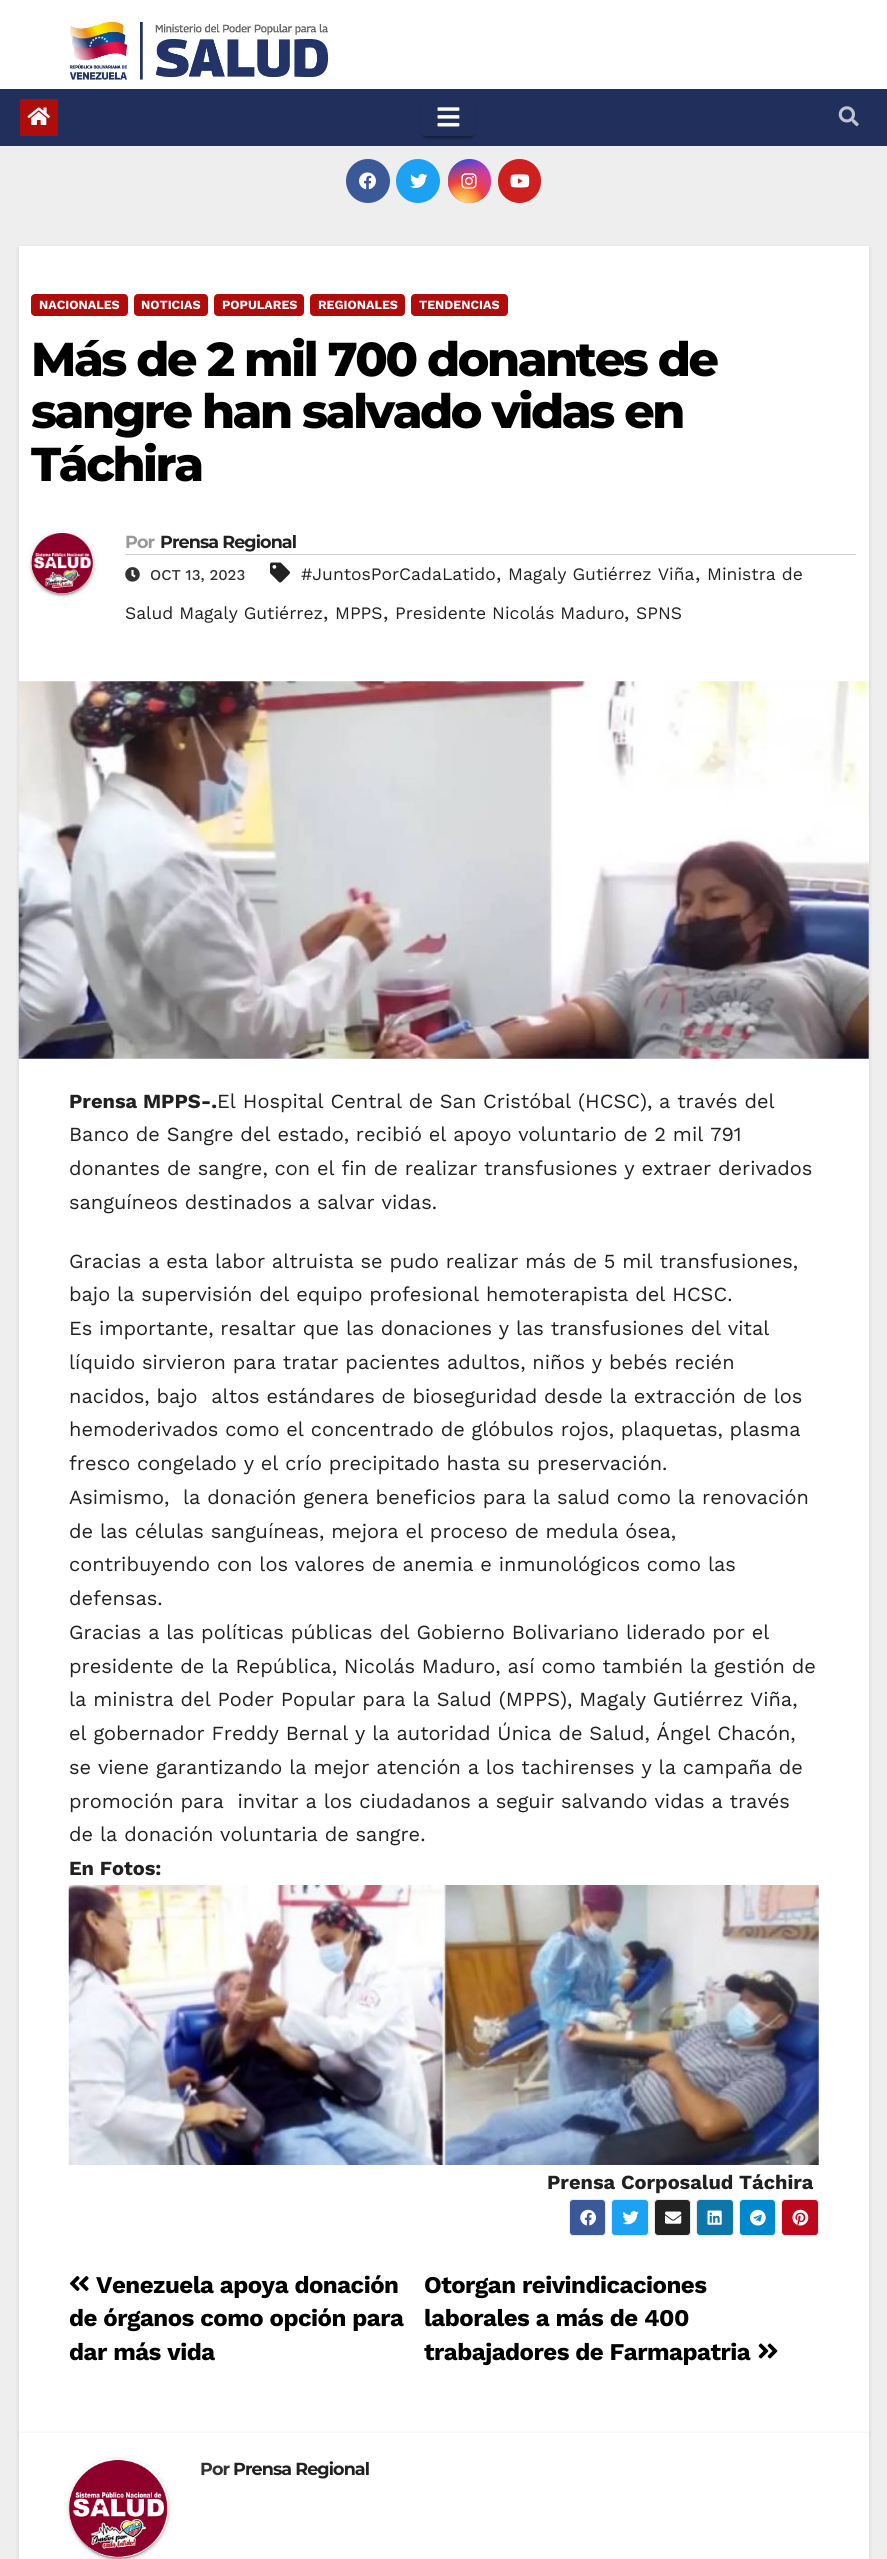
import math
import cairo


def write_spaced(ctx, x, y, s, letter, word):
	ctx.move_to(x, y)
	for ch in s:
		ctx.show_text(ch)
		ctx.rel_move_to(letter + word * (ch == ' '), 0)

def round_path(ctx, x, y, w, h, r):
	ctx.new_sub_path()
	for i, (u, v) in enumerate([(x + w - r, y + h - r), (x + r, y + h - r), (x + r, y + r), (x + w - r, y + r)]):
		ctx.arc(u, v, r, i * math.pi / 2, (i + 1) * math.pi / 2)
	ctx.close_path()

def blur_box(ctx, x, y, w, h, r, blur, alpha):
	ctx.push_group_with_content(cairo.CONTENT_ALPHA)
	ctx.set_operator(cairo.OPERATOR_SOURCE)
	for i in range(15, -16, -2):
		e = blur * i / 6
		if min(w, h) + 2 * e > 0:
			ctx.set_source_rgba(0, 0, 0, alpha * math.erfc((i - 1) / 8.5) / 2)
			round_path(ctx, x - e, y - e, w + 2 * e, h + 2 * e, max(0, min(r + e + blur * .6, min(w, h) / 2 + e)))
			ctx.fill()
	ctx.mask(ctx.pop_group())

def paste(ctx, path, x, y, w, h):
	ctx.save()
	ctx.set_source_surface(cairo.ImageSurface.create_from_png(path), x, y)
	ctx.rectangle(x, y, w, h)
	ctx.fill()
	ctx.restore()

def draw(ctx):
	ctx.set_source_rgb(0.933, 0.933, 0.933)
	ctx.paint()
	ctx.set_source_rgb(1, 1, 1)
	ctx.rectangle(0, 0, 887, 89)
	ctx.fill()
	paste(ctx, 'media/1.png', 69, 20, 261, 62)
	ctx.set_source_rgb(0.125, 0.184, 0.357)
	ctx.rectangle(0, 89, 887, 57)
	ctx.fill()
	ctx.set_source_rgb(0.686, 0.047, 0.047)
	ctx.rectangle(20, 99, 38, 37)
	ctx.fill()
	paste(ctx, 'media/2.png', 27, 107, 23, 18)
	ctx.save()
	ctx.set_fill_rule(cairo.FILL_RULE_EVEN_ODD)
	ctx.new_path()
	ctx.move_to(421, 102)
	ctx.line_to(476, 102)
	ctx.line_to(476, 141)
	ctx.line_to(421, 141)
	ctx.close_path()
	ctx.move_to(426, 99)
	ctx.line_to(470, 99)
	ctx.curve_to(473, 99, 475, 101, 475, 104)
	ctx.line_to(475, 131)
	ctx.curve_to(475, 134, 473, 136, 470, 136)
	ctx.line_to(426, 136)
	ctx.curve_to(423, 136, 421, 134, 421, 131)
	ctx.line_to(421, 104)
	ctx.curve_to(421, 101, 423, 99, 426, 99)
	ctx.close_path()
	ctx.clip()
	ctx.set_source_rgb(0, 0, 0)
	blur_box(ctx, 424, 105, 49, 33, 2.5, 0.5, 0.2)
	ctx.restore()
	ctx.save()
	ctx.set_fill_rule(cairo.FILL_RULE_EVEN_ODD)
	ctx.new_path()
	ctx.move_to(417, 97)
	ctx.line_to(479, 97)
	ctx.line_to(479, 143)
	ctx.line_to(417, 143)
	ctx.close_path()
	ctx.move_to(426, 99)
	ctx.line_to(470, 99)
	ctx.curve_to(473, 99, 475, 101, 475, 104)
	ctx.line_to(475, 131)
	ctx.curve_to(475, 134, 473, 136, 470, 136)
	ctx.line_to(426, 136)
	ctx.curve_to(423, 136, 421, 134, 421, 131)
	ctx.line_to(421, 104)
	ctx.curve_to(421, 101, 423, 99, 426, 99)
	ctx.close_path()
	ctx.clip()
	ctx.set_source_rgb(0, 0, 0)
	blur_box(ctx, 421, 101, 54, 38, 5, 1, 0.14)
	ctx.restore()
	paste(ctx, 'media/3.png', 437, 107, 23, 20)
	paste(ctx, 'media/4.png', 838, 106, 21, 21)
	ctx.set_source_rgb(0.231, 0.349, 0.596)
	ctx.arc(368, 181, 22, 0, 2 * math.pi)
	ctx.fill()
	paste(ctx, 'media/5.png', 359, 172, 17, 18)
	ctx.set_source_rgb(0.114, 0.631, 0.949)
	ctx.arc(418, 181, 22, 0, 2 * math.pi)
	ctx.fill()
	paste(ctx, 'media/6.png', 410, 173, 18, 16)
	gradient = cairo.LinearGradient(448, 159, 491, 203)
	gradient.add_color_stop_rgba(0.12, 0.137, 0.294, 0.843, 1)
	gradient.add_color_stop_rgba(0.58, 0.765, 0.235, 0.745, 1)
	ctx.set_source(gradient)
	round_path(ctx, 448, 159, 43, 44, 21.5)
	ctx.fill()
	gradient = cairo.RadialGradient(462, 205, 0, 462, 205, 55)
	gradient.add_color_stop_rgba(0, 1, 0.882, 0.49, 1)
	gradient.add_color_stop_rgba(0.1, 1, 0.804, 0.412, 1)
	gradient.add_color_stop_rgba(0.28, 0.98, 0.569, 0.216, 1)
	gradient.add_color_stop_rgba(0.42, 0.922, 0.255, 0.255, 1)
	gradient.add_color_stop_rgba(0.82, 0.922, 0.255, 0.255, 0)
	ctx.set_source(gradient)
	round_path(ctx, 448, 159, 43, 44, 21.5)
	ctx.fill()
	paste(ctx, 'media/7.png', 461, 173, 16, 16)
	ctx.set_source_rgb(0.804, 0.125, 0.122)
	round_path(ctx, 498, 159, 43, 44, 21.5)
	ctx.fill()
	paste(ctx, 'media/8.png', 510, 174, 20, 14)
	ctx.set_source_rgb(0, 0, 0)
	blur_box(ctx, 19, 248, 850, 2186, 0, 2, 0.15)
	ctx.set_source_rgb(1, 1, 1)
	ctx.rectangle(19, 246, 850, 2187)
	ctx.fill()
	ctx.set_source_rgb(0.686, 0.047, 0.047)
	round_path(ctx, 31, 294, 97, 22, 4)
	ctx.fill()
	ctx.select_font_face('Work Sans', cairo.FONT_SLANT_NORMAL, cairo.FONT_WEIGHT_BOLD)
	ctx.set_font_size(12.5)
	ctx.set_source_rgb(1, 1, 1)
	ctx.move_to(39, 309)
	ctx.show_text('NACIONALES')
	ctx.set_source_rgb(0.686, 0.047, 0.047)
	round_path(ctx, 134, 294, 74, 22, 4)
	ctx.fill()
	ctx.set_source_rgb(1, 1, 1)
	ctx.move_to(141, 309)
	ctx.show_text('NOTICIAS')
	ctx.set_source_rgb(0.686, 0.047, 0.047)
	round_path(ctx, 214, 294, 90, 22, 4)
	ctx.fill()
	ctx.set_source_rgb(1, 1, 1)
	ctx.move_to(222, 309)
	ctx.show_text('POPULARES')
	ctx.set_source_rgb(0.686, 0.047, 0.047)
	round_path(ctx, 310, 294, 95, 22, 4)
	ctx.fill()
	ctx.set_source_rgb(1, 1, 1)
	ctx.move_to(318, 309)
	ctx.show_text('REGIONALES')
	ctx.set_source_rgb(0.686, 0.047, 0.047)
	round_path(ctx, 411, 294, 97, 22, 4)
	ctx.fill()
	ctx.set_source_rgb(1, 1, 1)
	ctx.move_to(419, 309)
	ctx.show_text('TENDENCIAS')
	ctx.select_font_face('Montserrat ExtraBold')
	ctx.set_font_size(47.5)
	ctx.set_source_rgb(0, 0, 0)
	for x, y, s in [
		(31, 376, 'Más de 2 mil 700 donantes de'),
		(31, 428, 'sangre han salvado vidas en'),
		(31, 481, 'Táchira'),
	]:
		write_spaced(ctx, x, y, s, -2.4, 0)
	ctx.set_source_rgb(0, 0, 0)
	blur_box(ctx, 31, 533, 63, 62, 31, 3, 0.12)
	blur_box(ctx, 34, 538, 57, 57, 28.5, 0.5, 0.2)
	blur_box(ctx, 31, 534, 63, 62, 31, 1, 0.14)
	paste(ctx, 'media/9.png', 31, 532, 63, 62)
	ctx.set_source_rgb(0.8, 0.8, 0.8)
	ctx.rectangle(125, 554, 731, 1)
	ctx.fill()
	ctx.select_font_face('Montserrat', cairo.FONT_SLANT_NORMAL, cairo.FONT_WEIGHT_BOLD)
	ctx.set_font_size(17.5)
	ctx.set_source_rgb(0.6, 0.6, 0.6)
	write_spaced(ctx, 125, 548, 'Por', -0.9, 0)
	ctx.set_source_rgb(0.129, 0.129, 0.129)
	write_spaced(ctx, 160, 548, 'Prensa Regional', -0.9, 0)
	paste(ctx, 'media/10.png', 270, 562, 20, 21)
	ctx.select_font_face('Work Sans')
	ctx.move_to(301, 580)
	ctx.show_text('#JuntosPorCadaLatido')
	ctx.set_font_size(20)
	ctx.move_to(496, 580)
	ctx.show_text(',')
	ctx.set_font_size(17.5)
	ctx.move_to(508, 580)
	ctx.show_text('Magaly Gutiérrez Viña')
	ctx.set_font_size(20)
	ctx.move_to(695, 580)
	ctx.show_text(',')
	ctx.set_font_size(17.5)
	ctx.move_to(707, 580)
	ctx.show_text('Ministra de')
	ctx.move_to(125, 619)
	ctx.show_text('Salud Magaly Gutiérrez')
	ctx.set_font_size(20)
	ctx.move_to(323, 619)
	ctx.show_text(',')
	ctx.set_font_size(17.5)
	ctx.move_to(335, 619)
	ctx.show_text('MPPS')
	ctx.set_font_size(20)
	ctx.move_to(383, 619)
	ctx.show_text(',')
	ctx.set_font_size(17.5)
	ctx.move_to(395, 619)
	ctx.show_text('Presidente Nicolás Maduro')
	ctx.set_font_size(20)
	ctx.move_to(624, 619)
	ctx.show_text(',')
	ctx.set_font_size(17.5)
	ctx.move_to(636, 619)
	ctx.show_text('SPNS')
	paste(ctx, 'media/11.png', 125, 567, 15, 15)
	ctx.select_font_face('Work Sans Medium')
	ctx.set_font_size(15)
	ctx.set_source_rgb(0.2, 0.2, 0.2)
	ctx.move_to(150, 580)
	ctx.show_text('OCT 13, 2023')
	paste(ctx, 'media/12.png', 18, 681, 851, 378)
	ctx.select_font_face('Work Sans', cairo.FONT_SLANT_NORMAL, cairo.FONT_WEIGHT_BOLD)
	ctx.set_font_size(20)
	ctx.set_source_rgb(0.129, 0.129, 0.129)
	ctx.move_to(69, 1108)
	ctx.show_text('Prensa MPPS-.')
	ctx.select_font_face('Work Sans')
	for x, y, s in [
		(217, 1108, 'El Hospital Central de San Cristóbal (HCSC), a través del'),
		(69, 1141, 'Banco de Sangre del estado, recibió el apoyo voluntario de 2 mil 791'),
		(69, 1175, 'donantes de sangre, con el fin de realizar transfusiones y extraer derivados'),
		(69, 1209, 'sanguíneos destinados a salvar vidas.'),
		(69, 1268, 'Gracias a esta labor altruista se pudo realizar más de 5 mil transfusiones,'),
		(69, 1301, 'bajo la supervisión del equipo profesional hemoterapista del HCSC.'),
		(69, 1335, 'Es importante, resaltar que las donaciones y las transfusiones del vital'),
		(69, 1369, 'líquido sirvieron para tratar pacientes adultos, niños y bebés recién'),
		(69, 1403, 'nacidos, bajo  altos estándares de bioseguridad desde la extracción de los'),
		(69, 1436, 'hemoderivados como el concentrado de glóbulos rojos, plaquetas, plasma'),
		(69, 1470, 'fresco congelado y el crío precipitado hasta su preservación.'),
		(69, 1504, 'Asimismo,  la donación genera beneficios para la salud como la renovación'),
		(69, 1538, 'de las células sanguíneas, mejora el proceso de medula ósea,'),
		(69, 1571, 'contribuyendo con los valores de anemia e inmunológicos como las'),
		(69, 1605, 'defensas.'),
		(69, 1639, 'Gracias a las políticas públicas del Gobierno Bolivariano liderado por el'),
		(69, 1673, 'presidente de la República, Nicolás Maduro, así como también la gestión de'),
		(69, 1706, 'la ministra del Poder Popular para la Salud (MPPS), Magaly Gutiérrez Viña,'),
		(69, 1740, 'el gobernador Freddy Bernal y la autoridad Única de Salud, Ángel Chacón,'),
		(69, 1774, 'se viene garantizando la mejor atención a los tachirenses y la campaña de'),
		(69, 1808, 'promoción para  invitar a los ciudadanos a seguir salvando vidas a través'),
		(69, 1841, 'de la donación voluntaria de sangre.'),
	]:
		ctx.move_to(x, y)
		ctx.show_text(s)
	ctx.select_font_face('Work Sans', cairo.FONT_SLANT_NORMAL, cairo.FONT_WEIGHT_BOLD)
	ctx.move_to(69, 1875)
	ctx.show_text('En Fotos:')
	paste(ctx, 'media/13.png', 68, 1885, 376, 280)
	paste(ctx, 'media/14.png', 443, 1885, 376, 280)
	ctx.move_to(547, 2189)
	ctx.show_text('Prensa Corposalud Táchira')
	ctx.set_source_rgb(0.231, 0.349, 0.596)
	round_path(ctx, 569.5, 2199.5, 36, 36, 3.5)
	ctx.fill_preserve()
	ctx.set_source_rgb(0.922, 0.922, 0.922)
	ctx.set_line_width(1)
	ctx.stroke()
	paste(ctx, 'media/15.png', 580, 2209, 16, 17)
	ctx.set_source_rgb(0.114, 0.631, 0.949)
	round_path(ctx, 611.5, 2199.5, 37, 36, 3.5)
	ctx.fill_preserve()
	ctx.set_source_rgb(0.922, 0.922, 0.922)
	ctx.stroke()
	paste(ctx, 'media/16.png', 622, 2211, 17, 14)
	ctx.set_source_rgb(0.133, 0.133, 0.133)
	round_path(ctx, 654.5, 2199.5, 36, 36, 3.5)
	ctx.fill_preserve()
	ctx.set_source_rgb(0.922, 0.922, 0.922)
	ctx.stroke()
	paste(ctx, 'media/17.png', 665, 2211, 17, 13)
	ctx.set_source_rgb(0.055, 0.463, 0.659)
	round_path(ctx, 696.5, 2199.5, 37, 36, 3.5)
	ctx.fill_preserve()
	ctx.set_source_rgb(0.922, 0.922, 0.922)
	ctx.stroke()
	paste(ctx, 'media/18.png', 707, 2210, 15, 15)
	ctx.set_source_rgb(0, 0.533, 0.8)
	round_path(ctx, 739.5, 2199.5, 36, 36, 3.5)
	ctx.fill_preserve()
	ctx.set_source_rgb(0.922, 0.922, 0.922)
	ctx.stroke()
	paste(ctx, 'media/19.png', 750, 2209, 16, 17)
	ctx.set_source_rgb(0.741, 0.031, 0.11)
	round_path(ctx, 781.5, 2199.5, 37, 36, 3.5)
	ctx.fill_preserve()
	ctx.set_source_rgb(0.922, 0.922, 0.922)
	ctx.stroke()
	paste(ctx, 'media/20.png', 792, 2209, 17, 17)
	paste(ctx, 'media/21.png', 69, 2276, 20, 15)
	ctx.set_font_size(24)
	ctx.set_source_rgb(0, 0, 0)
	for x, y, s in [
		(96, 2293, 'Venezuela apoya donación'),
		(69, 2326, 'de órganos como opción para'),
		(69, 2360, 'dar más vida'),
		(424, 2293, 'Otorgan reivindicaciones'),
		(424, 2326, 'laborales a más de 400'),
		(424, 2360, 'trabajadores de Farmapatria'),
	]:
		write_spaced(ctx, x, y, s, -0.5, 0)
	paste(ctx, 'media/22.png', 758, 2343, 20, 16)
	ctx.set_source_rgb(0, 0, 0)
	blur_box(ctx, 19, 2434, 850, 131, 0, 2, 0.15)
	ctx.set_source_rgb(1, 1, 1)
	ctx.rectangle(19, 2433, 850, 126)
	ctx.fill()
	ctx.set_source_rgb(0, 0, 0)
	blur_box(ctx, 69, 2459, 100, 100, 50, 3, 0.12)
	blur_box(ctx, 71, 2464, 95, 95, 47.5, 0.5, 0.2)
	blur_box(ctx, 69, 2460, 100, 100, 50, 1, 0.14)
	paste(ctx, 'media/23.png', 68, 2459, 101, 99)
	ctx.select_font_face('Montserrat', cairo.FONT_SLANT_NORMAL, cairo.FONT_WEIGHT_BOLD)
	ctx.set_font_size(17.5)
	ctx.set_source_rgb(0.2, 0.2, 0.2)
	write_spaced(ctx, 200, 2475, 'Por', -0.9, 0)
	ctx.set_source_rgb(0.129, 0.129, 0.129)
	write_spaced(ctx, 233, 2475, 'Prensa Regional', -0.9, 0)


surface = cairo.ImageSurface(cairo.FORMAT_RGB24, 887, 2559)
ctx = cairo.Context(surface)
options = cairo.FontOptions()
options.set_hint_metrics(cairo.HINT_METRICS_OFF)
options.set_hint_style(cairo.HINT_STYLE_NONE)
ctx.set_font_options(options)
ctx.set_miter_limit(4)
draw(ctx)
surface.write_to_png('image.png')
